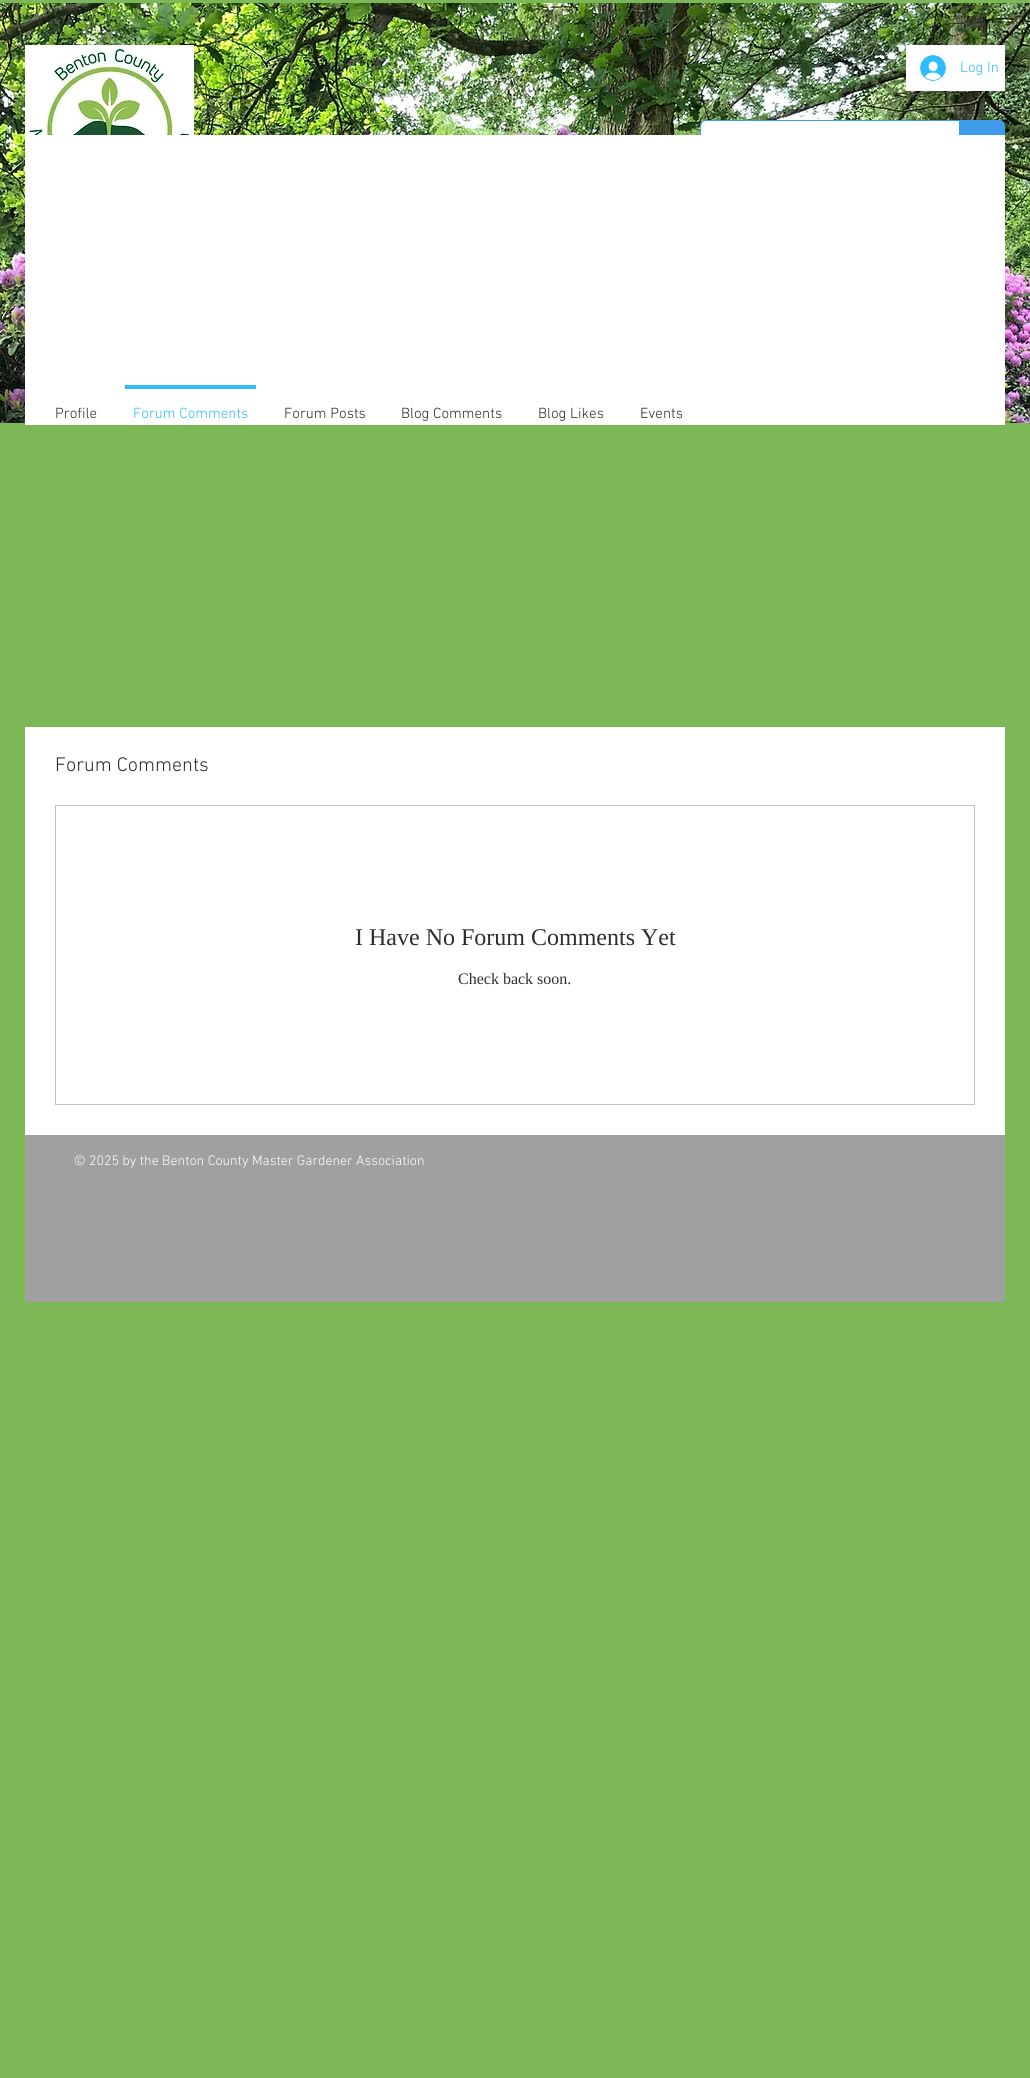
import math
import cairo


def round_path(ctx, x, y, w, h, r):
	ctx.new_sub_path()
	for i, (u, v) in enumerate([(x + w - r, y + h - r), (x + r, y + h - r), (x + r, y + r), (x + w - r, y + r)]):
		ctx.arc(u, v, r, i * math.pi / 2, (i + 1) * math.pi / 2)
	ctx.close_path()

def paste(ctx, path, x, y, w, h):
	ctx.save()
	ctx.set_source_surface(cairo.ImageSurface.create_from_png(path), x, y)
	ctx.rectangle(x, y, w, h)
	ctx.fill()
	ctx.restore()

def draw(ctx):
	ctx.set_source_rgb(0.486, 0.722, 0.337)
	ctx.paint()
	paste(ctx, 'media/1.png', 0, 3, 1030, 420)
	paste(ctx, 'media/2.png', 25, 45, 169, 90)
	ctx.set_source_rgba(1, 1, 1, 0.99)
	ctx.rectangle(906, 45, 99, 46)
	ctx.fill()
	paste(ctx, 'media/3.png', 920, 55, 26, 26)
	ctx.select_font_face('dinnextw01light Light')
	ctx.set_font_size(15)
	ctx.set_source_rgb(0.188, 0.741, 1)
	ctx.move_to(960, 72)
	ctx.show_text('Log In')
	round_path(ctx, 700.5, 120.5, 304, 45, 5.5)
	ctx.set_source_rgb(0.239, 0.608, 0.914)
	ctx.set_line_width(1)
	ctx.stroke()
	ctx.set_source_rgb(1, 1, 1)
	round_path(ctx, 701, 121, 303, 44, 5)
	ctx.fill()
	ctx.set_source_rgb(0.239, 0.608, 0.914)
	ctx.new_path()
	ctx.move_to(959, 121)
	ctx.line_to(999, 121)
	ctx.curve_to(1002, 121, 1004, 123, 1004, 126)
	ctx.line_to(1004, 160)
	ctx.curve_to(1004, 163, 1002, 165, 999, 165)
	ctx.line_to(959, 165)
	ctx.close_path()
	ctx.fill()
	ctx.set_source_rgb(1, 1, 1)
	ctx.rectangle(25, 135, 980, 290)
	ctx.fill()
	ctx.set_source_rgb(0.184, 0.18, 0.18)
	ctx.move_to(55, 418)
	ctx.show_text('Profile')
	ctx.set_source_rgb(0.188, 0.741, 1)
	ctx.rectangle(125, 385, 131, 4)
	ctx.fill()
	ctx.move_to(133, 418)
	ctx.show_text('Forum Comments')
	ctx.set_source_rgb(0.184, 0.18, 0.18)
	for x, y, s in [
		(284, 418, 'Forum Posts'),
		(401, 418, 'Blog Comments'),
		(538, 418, 'Blog Likes'),
		(640, 418, 'Events'),
	]:
		ctx.move_to(x, y)
		ctx.show_text(s)
	ctx.set_source_rgb(1, 1, 1)
	ctx.rectangle(25, 727, 980, 408)
	ctx.fill()
	ctx.set_font_size(20)
	ctx.set_source_rgb(0.184, 0.18, 0.18)
	ctx.move_to(55, 771)
	ctx.show_text('Forum Comments')
	ctx.rectangle(55.5, 805.5, 919, 299)
	ctx.set_source_rgb(0.757, 0.753, 0.753)
	ctx.stroke()
	ctx.select_font_face('Liberation Serif')
	ctx.set_font_size(24)
	ctx.set_source_rgb(0.184, 0.18, 0.18)
	ctx.move_to(355, 945)
	ctx.show_text('I Have No Forum Comments Yet')
	ctx.set_font_size(16)
	ctx.move_to(458, 984)
	ctx.show_text('Check back soon.')
	ctx.set_source_rgb(0.627, 0.627, 0.624)
	ctx.rectangle(25, 1135, 980, 167)
	ctx.fill()
	ctx.select_font_face('dinnextw01light Light')
	ctx.set_font_size(14)
	ctx.set_source_rgb(1, 1, 1)
	ctx.move_to(74, 1165)
	ctx.show_text('© 2025 by the Benton County Master Gardener Association')


surface = cairo.ImageSurface(cairo.FORMAT_RGB24, 1030, 2078)
ctx = cairo.Context(surface)
options = cairo.FontOptions()
options.set_hint_metrics(cairo.HINT_METRICS_OFF)
options.set_hint_style(cairo.HINT_STYLE_NONE)
ctx.set_font_options(options)
ctx.set_miter_limit(4)
draw(ctx)
surface.write_to_png('image.png')
